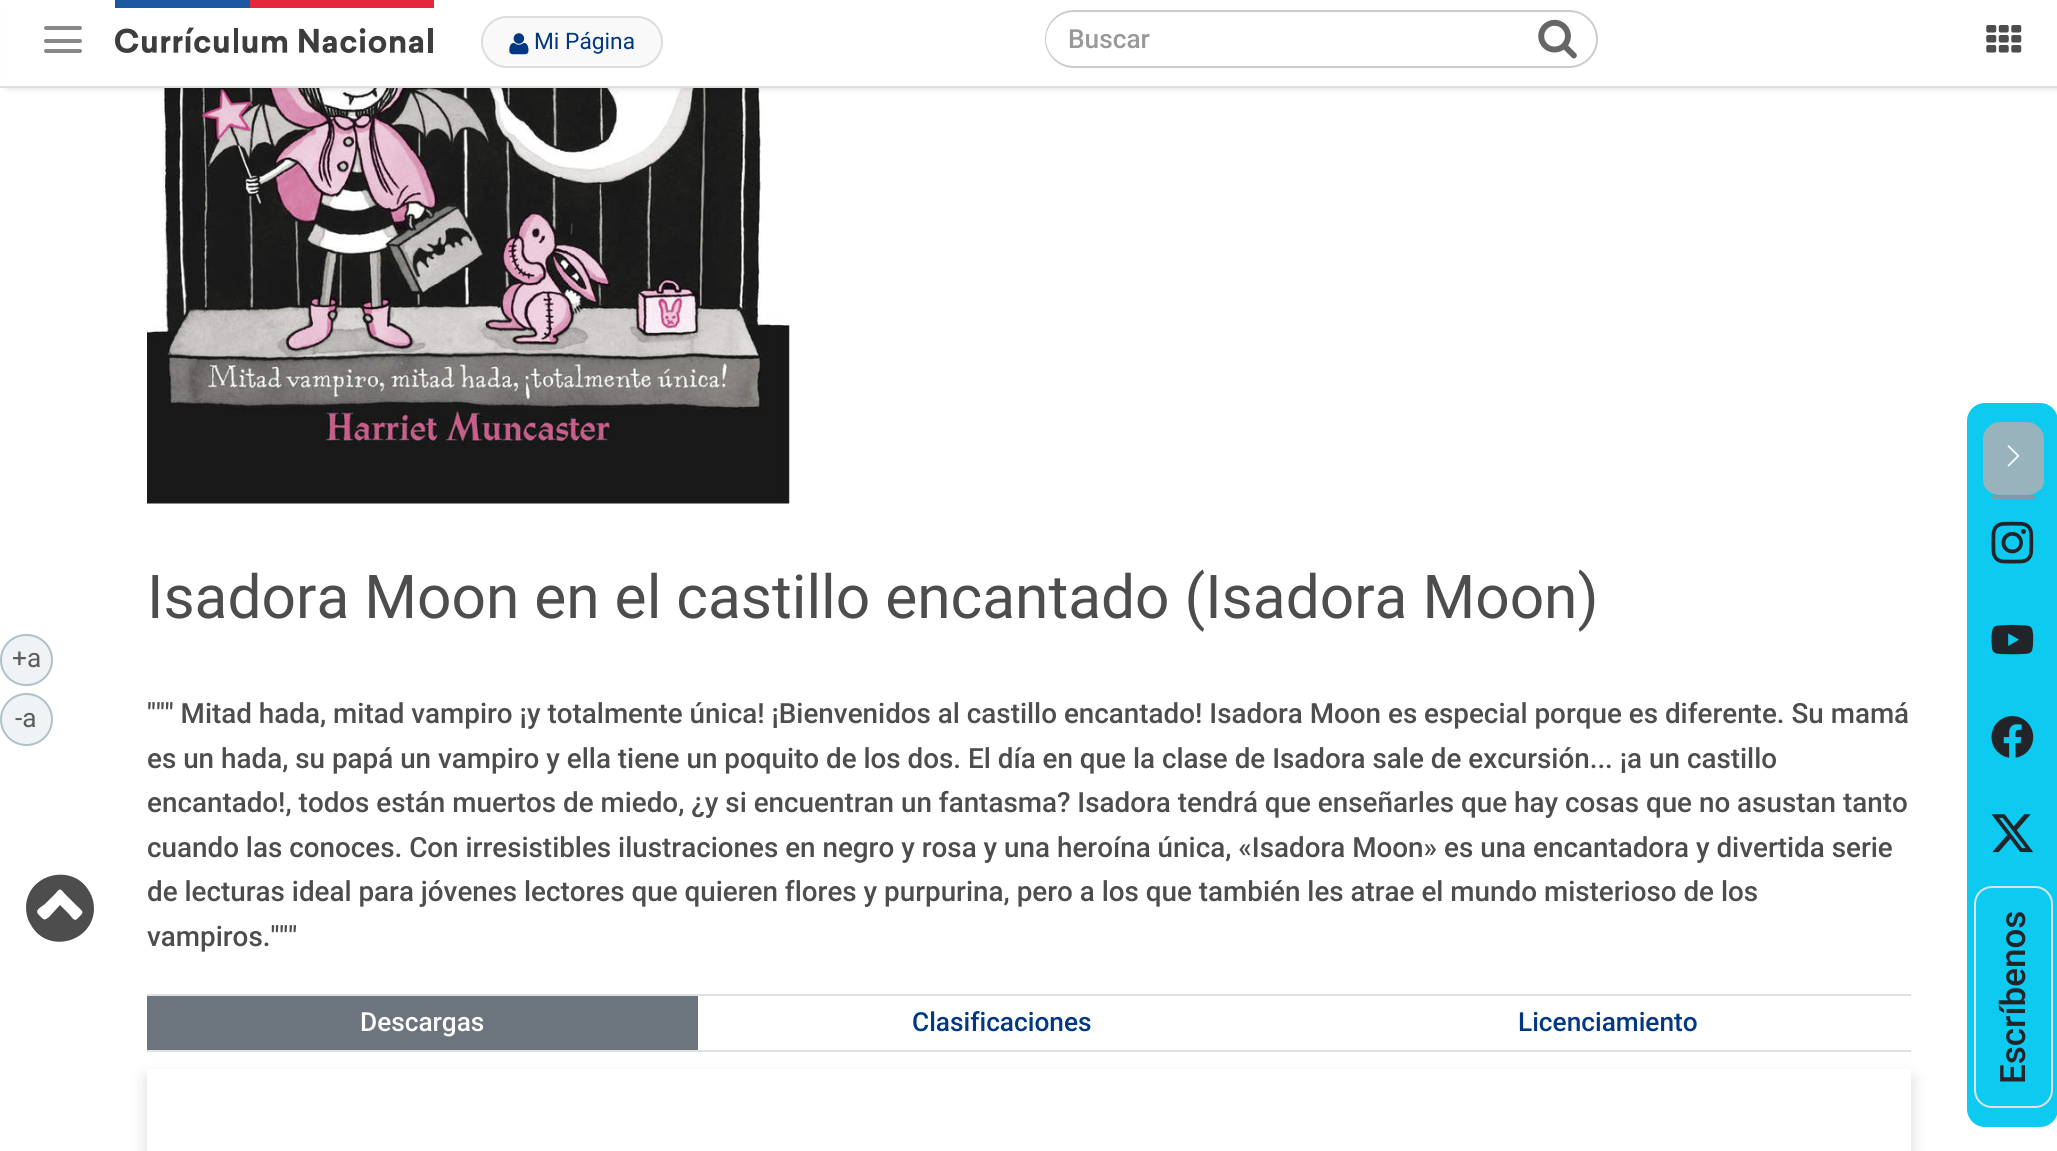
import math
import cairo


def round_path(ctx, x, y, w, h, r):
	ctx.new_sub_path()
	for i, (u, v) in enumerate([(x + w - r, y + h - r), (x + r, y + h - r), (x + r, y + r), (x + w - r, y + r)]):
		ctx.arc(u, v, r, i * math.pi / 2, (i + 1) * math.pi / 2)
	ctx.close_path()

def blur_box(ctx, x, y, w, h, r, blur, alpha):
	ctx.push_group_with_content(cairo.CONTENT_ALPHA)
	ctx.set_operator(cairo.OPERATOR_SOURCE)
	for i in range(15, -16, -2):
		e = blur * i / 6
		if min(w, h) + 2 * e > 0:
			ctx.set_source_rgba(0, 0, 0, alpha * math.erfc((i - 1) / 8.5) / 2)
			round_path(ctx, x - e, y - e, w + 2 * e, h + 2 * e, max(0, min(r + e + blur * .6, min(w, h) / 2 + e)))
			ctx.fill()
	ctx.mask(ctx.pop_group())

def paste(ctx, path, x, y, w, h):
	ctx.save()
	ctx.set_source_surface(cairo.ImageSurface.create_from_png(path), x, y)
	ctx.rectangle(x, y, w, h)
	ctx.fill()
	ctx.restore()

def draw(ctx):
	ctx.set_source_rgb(1, 1, 1)
	ctx.paint()
	ctx.set_source_rgb(0.937, 0.953, 0.961)
	round_path(ctx, 1, 635, 51, 50, 25)
	ctx.fill_preserve()
	ctx.set_source_rgb(0.678, 0.761, 0.788)
	ctx.stroke()
	ctx.select_font_face('Roboto')
	ctx.set_font_size(26.25)
	ctx.set_source_rgb(0.361, 0.361, 0.361)
	ctx.move_to(12, 667)
	ctx.show_text('+a')
	ctx.set_source_rgb(0.937, 0.953, 0.961)
	ctx.new_path()
	ctx.arc(26.5, 719.5, 25.5, 0, 2 * math.pi)
	ctx.fill_preserve()
	ctx.set_source_rgb(0.678, 0.761, 0.788)
	ctx.stroke()
	ctx.set_source_rgb(0.361, 0.361, 0.361)
	ctx.move_to(15, 727)
	ctx.show_text('-a')
	paste(ctx, 'media/5.png', 147, 88, 643, 416)
	ctx.set_source_rgb(0, 0, 0)
	blur_box(ctx, 7, 0, 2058, 88, 0, 3.5, 0.15)
	ctx.set_source_rgb(1, 1, 1)
	ctx.rectangle(2, 0, 2055, 86)
	ctx.fill()
	ctx.set_source_rgb(0.867, 0.867, 0.867)
	ctx.rectangle(0, 86, 2057, 2)
	ctx.fill()
	ctx.set_source_rgb(0.533, 0.533, 0.533)
	round_path(ctx, 44, 26, 38, 4, 2)
	ctx.fill()
	round_path(ctx, 44, 39, 38, 4, 2)
	ctx.fill()
	round_path(ctx, 44, 49, 38, 4, 2)
	ctx.fill()
	paste(ctx, 'media/1.png', 115, 0, 319, 53)
	ctx.set_source_rgb(0.973, 0.976, 0.98)
	round_path(ctx, 482, 17, 180, 50, 25)
	ctx.fill_preserve()
	ctx.set_source_rgb(0.867, 0.867, 0.867)
	ctx.stroke()
	paste(ctx, 'media/2.png', 509, 33, 20, 22)
	ctx.set_font_size(22.75)
	ctx.set_source_rgb(0, 0.22, 0.51)
	ctx.move_to(534, 49)
	ctx.show_text('Mi Página')
	ctx.set_source_rgb(0.8, 0.8, 0.8)
	ctx.set_fill_rule(cairo.FILL_RULE_EVEN_ODD)
	ctx.new_path()
	ctx.move_to(1074, 10)
	ctx.line_to(1531, 10)
	ctx.line_to(1531, 68)
	ctx.line_to(1074, 68)
	ctx.curve_to(1058, 68, 1045, 55, 1045, 39)
	ctx.curve_to(1045, 23, 1058, 10, 1074, 10)
	ctx.close_path()
	ctx.move_to(1074, 12)
	ctx.line_to(1531, 12)
	ctx.line_to(1531, 66)
	ctx.line_to(1074, 66)
	ctx.curve_to(1059, 66, 1046, 54, 1046, 39)
	ctx.curve_to(1046, 24, 1059, 12, 1074, 12)
	ctx.close_path()
	ctx.fill()
	ctx.select_font_face('Roboto Medium')
	ctx.set_font_size(26.25)
	ctx.set_source_rgb(0.6, 0.6, 0.6)
	ctx.move_to(1068, 48)
	ctx.show_text('Buscar')
	ctx.set_source_rgb(0.8, 0.8, 0.8)
	ctx.new_path()
	ctx.move_to(1531, 10)
	ctx.line_to(1569, 10)
	ctx.curve_to(1585, 10, 1598, 23, 1598, 39)
	ctx.curve_to(1598, 55, 1585, 68, 1569, 68)
	ctx.line_to(1531, 68)
	ctx.close_path()
	ctx.move_to(1531, 12)
	ctx.line_to(1569, 12)
	ctx.curve_to(1584, 12, 1596, 24, 1596, 39)
	ctx.curve_to(1596, 54, 1584, 66, 1569, 66)
	ctx.line_to(1531, 66)
	ctx.close_path()
	ctx.fill()
	paste(ctx, 'media/3.png', 1538, 19, 39, 40)
	paste(ctx, 'media/4.png', 1986, 25, 36, 28)
	ctx.select_font_face('Roboto')
	ctx.set_font_size(60.4)
	ctx.set_source_rgb(0.302, 0.302, 0.302)
	ctx.move_to(147, 618)
	ctx.show_text('Isadora Moon en el castillo encantado (Isadora Moon)')
	ctx.select_font_face('Roboto Medium')
	ctx.set_font_size(27.82)
	for x, y, s in [
		(147, 723, '""" Mitad hada, mitad vampiro ¡y totalmente única! ¡Bienvenidos al castillo encantado! Isadora Moon es especial porque es diferente. Su mamá'),
		(147, 768, 'es un hada, su papá un vampiro y ella tiene un poquito de los dos. El día en que la clase de Isadora sale de excursión... ¡a un castillo'),
		(147, 812, 'encantado!, todos están muertos de miedo, ¿y si encuentran un fantasma? Isadora tendrá que enseñarles que hay cosas que no asustan tanto'),
		(147, 857, 'cuando las conoces. Con irresistibles ilustraciones en negro y rosa y una heroína única, «Isadora Moon» es una encantadora y divertida serie'),
		(147, 901, 'de lecturas ideal para jóvenes lectores que quieren flores y purpurina, pero a los que también les atrae el mundo misterioso de los'),
		(147, 946, 'vampiros."""'),
	]:
		ctx.move_to(x, y)
		ctx.show_text(s)
	ctx.set_source_rgb(0.871, 0.886, 0.902)
	ctx.rectangle(147, 994, 1764, 2)
	ctx.rectangle(147, 1050, 1764, 2)
	ctx.fill()
	ctx.set_source_rgb(0.424, 0.459, 0.49)
	ctx.rectangle(147, 996, 551, 54)
	ctx.fill()
	ctx.set_font_size(26.25)
	ctx.set_source_rgb(1, 1, 1)
	ctx.move_to(360, 1031)
	ctx.show_text('Descargas')
	ctx.set_source_rgb(0, 0.22, 0.51)
	ctx.move_to(912, 1031)
	ctx.show_text('Clasificaciones')
	ctx.move_to(1518, 1031)
	ctx.show_text('Licenciamiento')
	ctx.save()
	ctx.new_path()
	ctx.move_to(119, 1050)
	ctx.line_to(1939, 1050)
	ctx.line_to(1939, 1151)
	ctx.line_to(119, 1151)
	ctx.close_path()
	ctx.move_to(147, 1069)
	ctx.line_to(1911, 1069)
	ctx.line_to(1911, 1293)
	ctx.line_to(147, 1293)
	ctx.close_path()
	ctx.clip()
	ctx.set_source_rgb(0, 0, 0)
	blur_box(ctx, 147, 1078, 1764, 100, 0, 9, 0.15)
	ctx.restore()
	ctx.set_source_rgb(0.302, 0.302, 0.302)
	ctx.set_fill_rule(cairo.FILL_RULE_WINDING)
	ctx.new_path()
	ctx.move_to(77, 919)
	ctx.curve_to(85, 911, 84, 913, 75, 904)
	ctx.line_to(65, 894)
	ctx.curve_to(60, 888, 60, 888, 55, 894)
	ctx.line_to(45, 904)
	ctx.curve_to(40, 908, 34, 910, 39, 915)
	ctx.curve_to(44, 920, 44, 921, 49, 917)
	ctx.line_to(60, 905)
	ctx.line_to(69, 914)
	ctx.curve_to(71, 916, 74, 922, 77, 919)
	ctx.close_path()
	ctx.move_to(89, 891)
	ctx.curve_to(93, 897, 94, 904, 94, 910)
	ctx.curve_to(92, 943, 47, 954, 31, 925)
	ctx.curve_to(27, 919, 26, 913, 26, 906)
	ctx.curve_to(28, 873, 73, 863, 89, 891)
	ctx.close_path()
	ctx.fill()
	ctx.set_source_rgb(0.051, 0.792, 0.941)
	round_path(ctx, 1968, 404, 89, 722, 17)
	ctx.fill_preserve()
	ctx.stroke()
	ctx.set_source_rgb(0.596, 0.702, 0.737)
	ctx.new_path()
	ctx.move_to(2000, 422)
	ctx.line_to(2026, 422)
	ctx.curve_to(2036, 422, 2044, 430, 2044, 439)
	ctx.line_to(2044, 481)
	ctx.curve_to(2044, 489, 2036, 495, 2026, 495)
	ctx.line_to(2000, 495)
	ctx.curve_to(1991, 495, 1983, 489, 1983, 481)
	ctx.line_to(1983, 439)
	ctx.curve_to(1983, 430, 1991, 422, 2000, 422)
	ctx.close_path()
	ctx.fill()
	ctx.set_source_rgb(0.475, 0.612, 0.659)
	ctx.rectangle(1992, 495, 43, 4)
	ctx.fill()
	paste(ctx, 'media/6.png', 2007, 445, 13, 22)
	paste(ctx, 'media/7.png', 1991, 521, 43, 43)
	paste(ctx, 'media/8.png', 1991, 624, 43, 31)
	paste(ctx, 'media/9.png', 1991, 716, 43, 42)
	paste(ctx, 'media/10.png', 1991, 814, 43, 39)
	round_path(ctx, 1975, 887, 77, 220, 17)
	ctx.set_source_rgb(0.871, 0.886, 0.902)
	ctx.stroke()
	ctx.set_font_size(35)
	ctx.set_source_rgb(0.129, 0.145, 0.161)
	ctx.save()
	ctx.translate(2025, 1084)
	ctx.rotate(-90 * math.pi / 180)
	ctx.move_to(0, 0)
	ctx.show_text('Escríbenos')
	ctx.restore()


surface = cairo.ImageSurface(cairo.FORMAT_RGB24, 2057, 1151)
ctx = cairo.Context(surface)
options = cairo.FontOptions()
options.set_hint_metrics(cairo.HINT_METRICS_OFF)
options.set_hint_style(cairo.HINT_STYLE_NONE)
ctx.set_font_options(options)
ctx.set_miter_limit(4)
draw(ctx)
surface.write_to_png('image.png')
